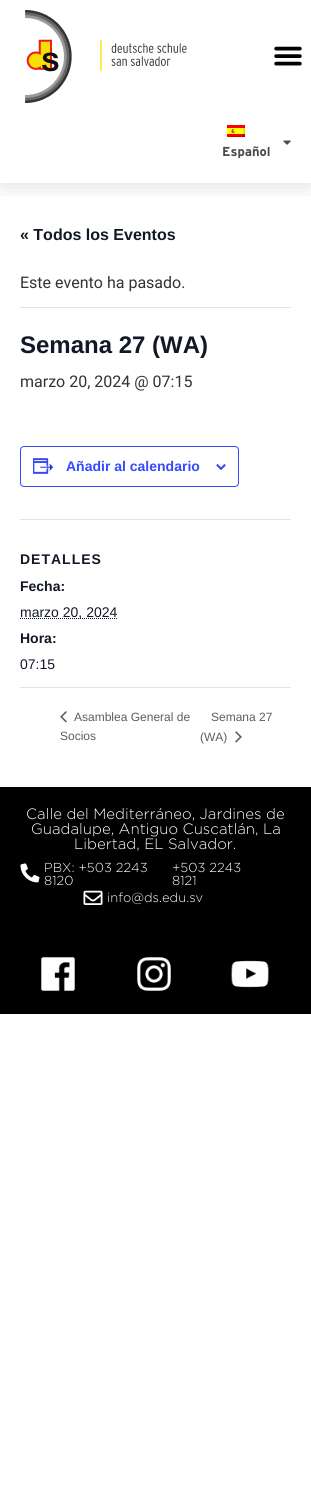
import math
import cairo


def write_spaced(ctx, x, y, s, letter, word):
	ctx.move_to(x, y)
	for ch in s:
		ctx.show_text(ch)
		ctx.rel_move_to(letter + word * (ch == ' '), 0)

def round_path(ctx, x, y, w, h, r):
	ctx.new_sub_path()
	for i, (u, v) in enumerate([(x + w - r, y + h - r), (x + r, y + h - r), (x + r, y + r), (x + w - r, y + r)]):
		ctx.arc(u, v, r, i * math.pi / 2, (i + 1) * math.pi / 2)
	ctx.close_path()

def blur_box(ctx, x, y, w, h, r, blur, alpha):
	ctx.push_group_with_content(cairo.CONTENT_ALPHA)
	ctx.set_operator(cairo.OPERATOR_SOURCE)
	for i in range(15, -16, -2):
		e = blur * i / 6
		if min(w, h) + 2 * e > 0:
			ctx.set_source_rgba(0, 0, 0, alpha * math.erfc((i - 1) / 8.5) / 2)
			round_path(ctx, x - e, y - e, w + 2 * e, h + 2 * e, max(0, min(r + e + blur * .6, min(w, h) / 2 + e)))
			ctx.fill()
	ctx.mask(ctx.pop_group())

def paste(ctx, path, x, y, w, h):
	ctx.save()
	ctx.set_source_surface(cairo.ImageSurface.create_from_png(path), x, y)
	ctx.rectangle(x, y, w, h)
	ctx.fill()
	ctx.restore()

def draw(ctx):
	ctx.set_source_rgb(1, 1, 1)
	ctx.paint()
	ctx.save()
	ctx.rectangle(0, 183, 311, 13)
	ctx.clip()
	ctx.set_source_rgb(0, 0, 0)
	blur_box(ctx, 0, 0, 311, 183, 0, 12, 0.15)
	ctx.restore()
	paste(ctx, 'media/1.png', 25, 10, 162, 93)
	paste(ctx, 'media/2.png', 274, 46, 28, 20)
	paste(ctx, 'media/3.png', 283, 140, 8, 5)
	paste(ctx, 'media/4.png', 227, 125, 18, 12)
	ctx.select_font_face('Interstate', cairo.FONT_SLANT_NORMAL, cairo.FONT_WEIGHT_BOLD)
	ctx.set_font_size(13)
	ctx.set_source_rgb(0.286, 0.298, 0.31)
	ctx.move_to(222, 156)
	ctx.show_text('Español')
	ctx.select_font_face('Liberation Sans', cairo.FONT_SLANT_NORMAL, cairo.FONT_WEIGHT_BOLD)
	ctx.set_font_size(16)
	ctx.set_source_rgb(0.078, 0.094, 0.153)
	ctx.move_to(20, 240)
	ctx.show_text('« Todos los Eventos')
	ctx.set_source_rgb(0.894, 0.894, 0.894)
	ctx.rectangle(20, 307, 271, 1)
	ctx.fill()
	ctx.select_font_face('Roboto')
	ctx.set_source_rgb(0.2, 0.2, 0.2)
	ctx.move_to(20, 288)
	ctx.show_text('Este evento ha pasado.')
	ctx.select_font_face('Liberation Sans', cairo.FONT_SLANT_NORMAL, cairo.FONT_WEIGHT_BOLD)
	ctx.set_font_size(24)
	ctx.set_source_rgb(0.078, 0.094, 0.153)
	ctx.move_to(20, 353)
	ctx.show_text('Semana 27 (WA)')
	ctx.select_font_face('Roboto')
	ctx.set_font_size(16)
	ctx.set_source_rgb(0.2, 0.2, 0.2)
	ctx.move_to(20, 387)
	ctx.show_text('marzo 20, 2024 @ 07:15')
	round_path(ctx, 20.5, 446.5, 218, 40, 3.5)
	ctx.set_source_rgb(0.2, 0.29, 1)
	ctx.set_line_width(1)
	ctx.stroke()
	paste(ctx, 'media/5.png', 33, 458, 21, 16)
	ctx.select_font_face('Liberation Sans', cairo.FONT_SLANT_NORMAL, cairo.FONT_WEIGHT_BOLD)
	ctx.set_font_size(14)
	ctx.move_to(66, 471)
	ctx.show_text('Añadir al calendario')
	paste(ctx, 'media/6.png', 216, 464, 10, 6)
	ctx.set_source_rgb(0.894, 0.894, 0.894)
	ctx.rectangle(20, 519, 271, 1)
	ctx.fill()
	ctx.set_source_rgb(0.078, 0.094, 0.153)
	write_spaced(ctx, 20, 564, 'DETALLES', 1, 0)
	ctx.move_to(20, 591)
	ctx.show_text('Fecha:')
	ctx.new_path()
	ctx.move_to(20, 618.5)
	ctx.line_to(117.5, 618.5)
	ctx.set_dash([1, 1])
	ctx.stroke()
	ctx.select_font_face('Liberation Sans')
	ctx.move_to(20, 617)
	ctx.show_text('marzo 20, 2024')
	ctx.select_font_face('Liberation Sans', cairo.FONT_SLANT_NORMAL, cairo.FONT_WEIGHT_BOLD)
	ctx.move_to(20, 643)
	ctx.show_text('Hora:')
	ctx.select_font_face('Liberation Sans')
	ctx.move_to(20, 669)
	ctx.show_text('07:15')
	ctx.set_source_rgb(0.894, 0.894, 0.894)
	ctx.rectangle(20, 687, 271, 1)
	ctx.fill()
	paste(ctx, 'media/7.png', 60, 711, 7, 12)
	ctx.set_font_size(12)
	ctx.set_source_rgb(0.365, 0.365, 0.365)
	for x, y, s in [
		(74, 721, 'Asamblea General de'),
		(60, 740, 'Socios'),
		(211, 721, 'Semana 27'),
		(200, 741, '(WA)'),
	]:
		ctx.move_to(x, y)
		ctx.show_text(s)
	paste(ctx, 'media/8.png', 235, 731, 7, 12)
	ctx.set_source_rgb(0, 0, 0)
	ctx.rectangle(0, 787, 311, 227)
	ctx.fill()
	ctx.select_font_face('Gotham Light')
	ctx.set_font_size(15)
	ctx.set_source_rgb(1, 1, 1)
	for x, y, s in [
		(26, 819, 'Calle del Mediterráneo, Jardines de'),
		(31, 834, 'Guadalupe, Antiguo Cuscatlán, La'),
		(74, 849, 'Libertad, EL Salvador.'),
	]:
		ctx.move_to(x, y)
		ctx.show_text(s)
	paste(ctx, 'media/9.png', 20, 863, 20, 20)
	ctx.set_font_size(13)
	for x, y, s in [
		(44, 872, 'PBX: +503 2243'),
		(44, 885, '8120'),
		(172, 872, '+503 2243'),
		(172, 885, '8121'),
	]:
		ctx.move_to(x, y)
		ctx.show_text(s)
	paste(ctx, 'media/10.png', 83, 890, 20, 15)
	ctx.move_to(107, 902)
	ctx.show_text('info@ds.edu.sv')
	paste(ctx, 'media/11.png', 41, 957, 34, 34)
	paste(ctx, 'media/12.png', 137, 957, 34, 34)
	paste(ctx, 'media/13.png', 231, 960, 38, 28)


surface = cairo.ImageSurface(cairo.FORMAT_RGB24, 311, 1506)
ctx = cairo.Context(surface)
options = cairo.FontOptions()
options.set_hint_metrics(cairo.HINT_METRICS_OFF)
options.set_hint_style(cairo.HINT_STYLE_NONE)
ctx.set_font_options(options)
ctx.set_miter_limit(4)
draw(ctx)
surface.write_to_png('image.png')
